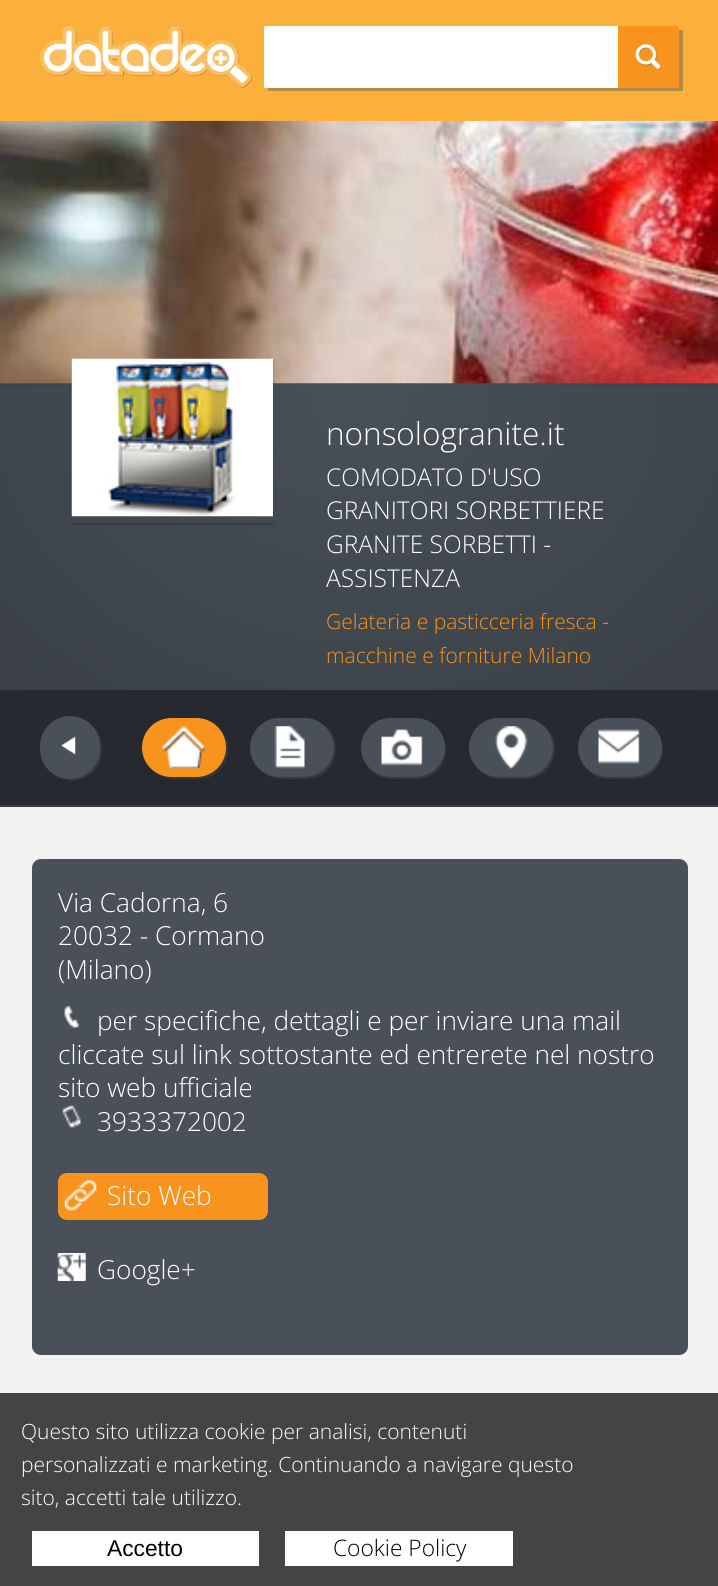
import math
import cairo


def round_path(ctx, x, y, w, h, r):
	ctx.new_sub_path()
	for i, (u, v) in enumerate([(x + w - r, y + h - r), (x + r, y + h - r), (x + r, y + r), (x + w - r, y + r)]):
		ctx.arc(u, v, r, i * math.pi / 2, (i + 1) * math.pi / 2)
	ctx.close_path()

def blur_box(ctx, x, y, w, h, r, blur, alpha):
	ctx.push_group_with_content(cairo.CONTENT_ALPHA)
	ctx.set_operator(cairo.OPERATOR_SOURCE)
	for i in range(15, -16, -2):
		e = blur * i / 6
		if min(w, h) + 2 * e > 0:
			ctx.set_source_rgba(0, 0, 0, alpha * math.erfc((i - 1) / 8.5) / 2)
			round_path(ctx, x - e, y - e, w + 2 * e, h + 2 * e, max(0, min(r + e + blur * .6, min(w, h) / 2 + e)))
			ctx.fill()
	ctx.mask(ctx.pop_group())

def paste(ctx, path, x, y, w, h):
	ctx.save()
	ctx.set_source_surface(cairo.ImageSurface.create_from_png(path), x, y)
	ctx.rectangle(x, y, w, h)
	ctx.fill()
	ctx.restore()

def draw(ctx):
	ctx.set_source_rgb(0.949, 0.949, 0.949)
	ctx.paint()
	ctx.set_source_rgb(0.984, 0.69, 0.231)
	ctx.rectangle(0, 0, 718, 121)
	ctx.fill()
	paste(ctx, 'media/1.png', 40, 26, 212, 62)
	ctx.set_source_rgb(0.706, 0.541, 0.278)
	ctx.new_path()
	ctx.move_to(268, 88)
	ctx.line_to(268, 91)
	ctx.line_to(683, 91)
	ctx.line_to(683, 30)
	ctx.line_to(679, 30)
	ctx.line_to(679, 88)
	ctx.close_path()
	ctx.fill()
	ctx.set_source_rgb(1, 1, 1)
	ctx.rectangle(264, 26, 354, 62)
	ctx.fill()
	ctx.set_source_rgb(0.969, 0.576, 0.118)
	ctx.rectangle(618, 26, 61, 62)
	ctx.fill()
	paste(ctx, 'media/2.png', 635, 44, 26, 26)
	gradient = cairo.RadialGradient(0, 0, 0, 0, 0, 1)
	gradient.set_matrix(cairo.Matrix(1 / 509, 0, 0, 1 / 402, -1 * 360 / 509, -1 * 405 / 402))
	gradient.add_color_stop_rgba(0, 0.282, 0.314, 0.345, 1)
	gradient.add_color_stop_rgba(1, 0.227, 0.251, 0.275, 1)
	ctx.set_source(gradient)
	ctx.rectangle(0, 383, 718, 307)
	ctx.fill()
	ctx.set_source_rgba(0.286, 0.314, 0.349, 0.4)
	ctx.new_path()
	ctx.move_to(2, 390)
	ctx.line_to(2, 392)
	ctx.line_to(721, 392)
	ctx.line_to(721, 123)
	ctx.line_to(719, 123)
	ctx.line_to(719, 390)
	ctx.close_path()
	ctx.fill()
	paste(ctx, 'media/3.png', 0, 120, 718, 264)
	ctx.save()
	ctx.set_fill_rule(cairo.FILL_RULE_EVEN_ODD)
	ctx.new_path()
	ctx.move_to(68, 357)
	ctx.line_to(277, 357)
	ctx.line_to(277, 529)
	ctx.line_to(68, 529)
	ctx.close_path()
	ctx.move_to(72, 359)
	ctx.line_to(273, 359)
	ctx.line_to(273, 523)
	ctx.line_to(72, 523)
	ctx.close_path()
	ctx.clip()
	ctx.set_source_rgb(0, 0, 0)
	blur_box(ctx, 72, 361, 201, 164, 0, 1, 0.2)
	ctx.restore()
	paste(ctx, 'media/4.png', 71, 358, 202, 159)
	ctx.select_font_face('Open Sans Light')
	ctx.set_font_size(31.5)
	ctx.set_source_rgb(1, 1, 1)
	ctx.move_to(326, 445)
	ctx.show_text('nonsologranite.it')
	ctx.set_font_size(24.5)
	for x, y, s in [
		(326, 486, 'COMODATO D\'USO'),
		(326, 519, 'GRANITORI SORBETTIERE'),
		(326, 553, 'GRANITE SORBETTI -'),
		(326, 587, 'ASSISTENZA'),
	]:
		ctx.move_to(x, y)
		ctx.show_text(s)
	ctx.set_font_size(21)
	ctx.set_source_rgb(0.969, 0.576, 0.118)
	ctx.move_to(326, 629)
	ctx.show_text('Gelateria e pasticceria fresca -')
	ctx.move_to(326, 663)
	ctx.show_text('macchine e forniture Milano')
	ctx.set_source_rgb(0.149, 0.165, 0.188)
	ctx.rectangle(0, 690, 718, 115)
	ctx.fill()
	ctx.set_source_rgb(0.227, 0.251, 0.278)
	ctx.rectangle(0, 805, 718, 2)
	ctx.fill()
	ctx.set_source_rgb(0.204, 0.224, 0.251)
	ctx.new_path()
	ctx.move_to(48, 769)
	ctx.curve_to(59, 783, 80, 785, 93, 772)
	ctx.curve_to(105, 760, 105, 738, 93, 726)
	ctx.curve_to(103, 738, 102, 759, 91, 770)
	ctx.curve_to(79, 782, 59, 781, 48, 769)
	ctx.close_path()
	ctx.fill()
	ctx.set_source_rgb(0.286, 0.314, 0.349)
	round_path(ctx, 40, 716, 60, 63, 30)
	ctx.fill()
	paste(ctx, 'media/5.png', 61, 736, 15, 19)
	ctx.set_source_rgb(0.204, 0.224, 0.251)
	ctx.new_path()
	ctx.move_to(154, 771)
	ctx.curve_to(159, 776, 166, 779, 174, 779)
	ctx.line_to(198, 779)
	ctx.curve_to(215, 779, 228, 766, 228, 749)
	ctx.curve_to(228, 738, 223, 729, 214, 724)
	ctx.curve_to(230, 736, 229, 761, 213, 772)
	ctx.curve_to(204, 778, 194, 777, 184, 777)
	ctx.curve_to(173, 777, 163, 778, 154, 771)
	ctx.close_path()
	ctx.fill()
	ctx.set_source_rgb(0.969, 0.576, 0.118)
	round_path(ctx, 142, 718, 84, 59, 29.5)
	ctx.fill()
	paste(ctx, 'media/6.png', 162, 726, 43, 43)
	ctx.set_source_rgb(0.204, 0.224, 0.251)
	ctx.new_path()
	ctx.move_to(259, 769)
	ctx.curve_to(270, 781, 284, 779, 298, 779)
	ctx.curve_to(305, 779, 311, 779, 318, 777)
	ctx.curve_to(338, 768, 342, 741, 326, 726)
	ctx.curve_to(331, 732, 334, 739, 334, 747)
	ctx.curve_to(334, 764, 321, 777, 304, 777)
	ctx.line_to(280, 777)
	ctx.curve_to(272, 777, 265, 774, 259, 769)
	ctx.close_path()
	ctx.fill()
	ctx.set_source_rgb(0.286, 0.314, 0.349)
	round_path(ctx, 250, 718, 84, 59, 29.5)
	ctx.fill()
	paste(ctx, 'media/7.png', 274, 726, 31, 43)
	ctx.set_source_rgb(0.204, 0.224, 0.251)
	ctx.new_path()
	ctx.move_to(368, 767)
	ctx.curve_to(378, 781, 393, 779, 408, 779)
	ctx.curve_to(415, 779, 421, 779, 428, 777)
	ctx.curve_to(447, 769, 452, 743, 437, 728)
	ctx.curve_to(450, 743, 445, 767, 426, 775)
	ctx.curve_to(420, 777, 413, 777, 407, 777)
	ctx.curve_to(392, 777, 378, 779, 368, 767)
	ctx.close_path()
	ctx.fill()
	ctx.set_source_rgb(0.286, 0.314, 0.349)
	round_path(ctx, 361, 718, 84, 59, 29.5)
	ctx.fill()
	paste(ctx, 'media/8.png', 381, 729, 42, 37)
	ctx.set_source_rgb(0.204, 0.224, 0.251)
	ctx.new_path()
	ctx.move_to(480, 770)
	ctx.curve_to(485, 776, 493, 779, 501, 779)
	ctx.line_to(525, 779)
	ctx.curve_to(542, 779, 555, 766, 555, 749)
	ctx.curve_to(555, 739, 550, 730, 543, 725)
	ctx.curve_to(549, 730, 553, 738, 553, 747)
	ctx.curve_to(553, 764, 540, 777, 523, 777)
	ctx.line_to(499, 777)
	ctx.curve_to(491, 777, 485, 774, 480, 770)
	ctx.close_path()
	ctx.fill()
	ctx.set_source_rgb(0.286, 0.314, 0.349)
	round_path(ctx, 469, 718, 84, 59, 29.5)
	ctx.fill()
	paste(ctx, 'media/9.png', 495, 726, 33, 43)
	ctx.set_source_rgb(0.204, 0.224, 0.251)
	ctx.new_path()
	ctx.move_to(585, 767)
	ctx.curve_to(595, 781, 610, 779, 625, 779)
	ctx.curve_to(632, 779, 638, 779, 645, 777)
	ctx.curve_to(664, 769, 669, 743, 654, 728)
	ctx.curve_to(667, 743, 662, 767, 643, 775)
	ctx.curve_to(637, 777, 630, 777, 624, 777)
	ctx.curve_to(609, 777, 595, 779, 585, 767)
	ctx.close_path()
	ctx.fill()
	ctx.set_source_rgb(0.286, 0.314, 0.349)
	round_path(ctx, 578, 718, 84, 59, 29.5)
	ctx.fill()
	paste(ctx, 'media/10.png', 598, 729, 42, 35)
	round_path(ctx, 32, 859, 656, 496, 9)
	ctx.fill()
	ctx.set_font_size(26.25)
	ctx.set_source_rgb(1, 1, 1)
	for x, y, s in [
		(58, 912, 'Via Cadorna, 6'),
		(58, 945, '20032 - Cormano'),
		(58, 979, '(Milano)'),
	]:
		ctx.move_to(x, y)
		ctx.show_text(s)
	paste(ctx, 'media/11.png', 64, 1005, 16, 23)
	for x, y, s in [
		(97, 1030, 'per specifiche, dettagli e per inviare una mail'),
		(58, 1064, 'cliccate sul link sottostante ed entrerete nel nostro'),
		(58, 1097, 'sito web ufficiale'),
	]:
		ctx.move_to(x, y)
		ctx.show_text(s)
	paste(ctx, 'media/12.png', 62, 1105, 19, 23)
	ctx.move_to(97, 1131)
	ctx.show_text('3933372002')
	ctx.set_source_rgb(0.969, 0.576, 0.118)
	round_path(ctx, 58, 1173, 210, 47, 9)
	ctx.fill()
	paste(ctx, 'media/13.png', 64, 1180, 33, 31)
	ctx.set_source_rgb(1, 1, 1)
	ctx.move_to(107, 1205)
	ctx.show_text('Sito Web')
	paste(ctx, 'media/14.png', 57, 1253, 29, 28)
	ctx.move_to(97, 1279)
	ctx.show_text('Google+')
	ctx.set_source_rgb(0.267, 0.267, 0.267)
	ctx.rectangle(0, 1393, 718, 193)
	ctx.fill()
	ctx.set_font_size(21)
	ctx.set_source_rgb(1, 1, 1)
	for x, y, s in [
		(21, 1439, 'Questo sito utilizza cookie per analisi, contenuti'),
		(21, 1472, 'personalizzati e marketing. Continuando a navigare questo'),
		(21, 1505, 'sito, accetti tale utilizzo.'),
	]:
		ctx.move_to(x, y)
		ctx.show_text(s)
	ctx.rectangle(32, 1531, 227, 35)
	ctx.fill()
	ctx.select_font_face('Liberation Sans')
	ctx.set_font_size(22.75)
	ctx.set_source_rgb(0, 0, 0)
	ctx.move_to(107, 1556)
	ctx.show_text('Accetto')
	ctx.set_source_rgb(1, 1, 1)
	ctx.rectangle(285, 1531, 228, 35)
	ctx.fill()
	ctx.select_font_face('Open Sans Light')
	ctx.set_source_rgb(0, 0, 0)
	ctx.move_to(333, 1556)
	ctx.show_text('Cookie Policy')


surface = cairo.ImageSurface(cairo.FORMAT_RGB24, 718, 1586)
ctx = cairo.Context(surface)
options = cairo.FontOptions()
options.set_hint_metrics(cairo.HINT_METRICS_OFF)
options.set_hint_style(cairo.HINT_STYLE_NONE)
ctx.set_font_options(options)
ctx.set_miter_limit(4)
draw(ctx)
surface.write_to_png('image.png')
